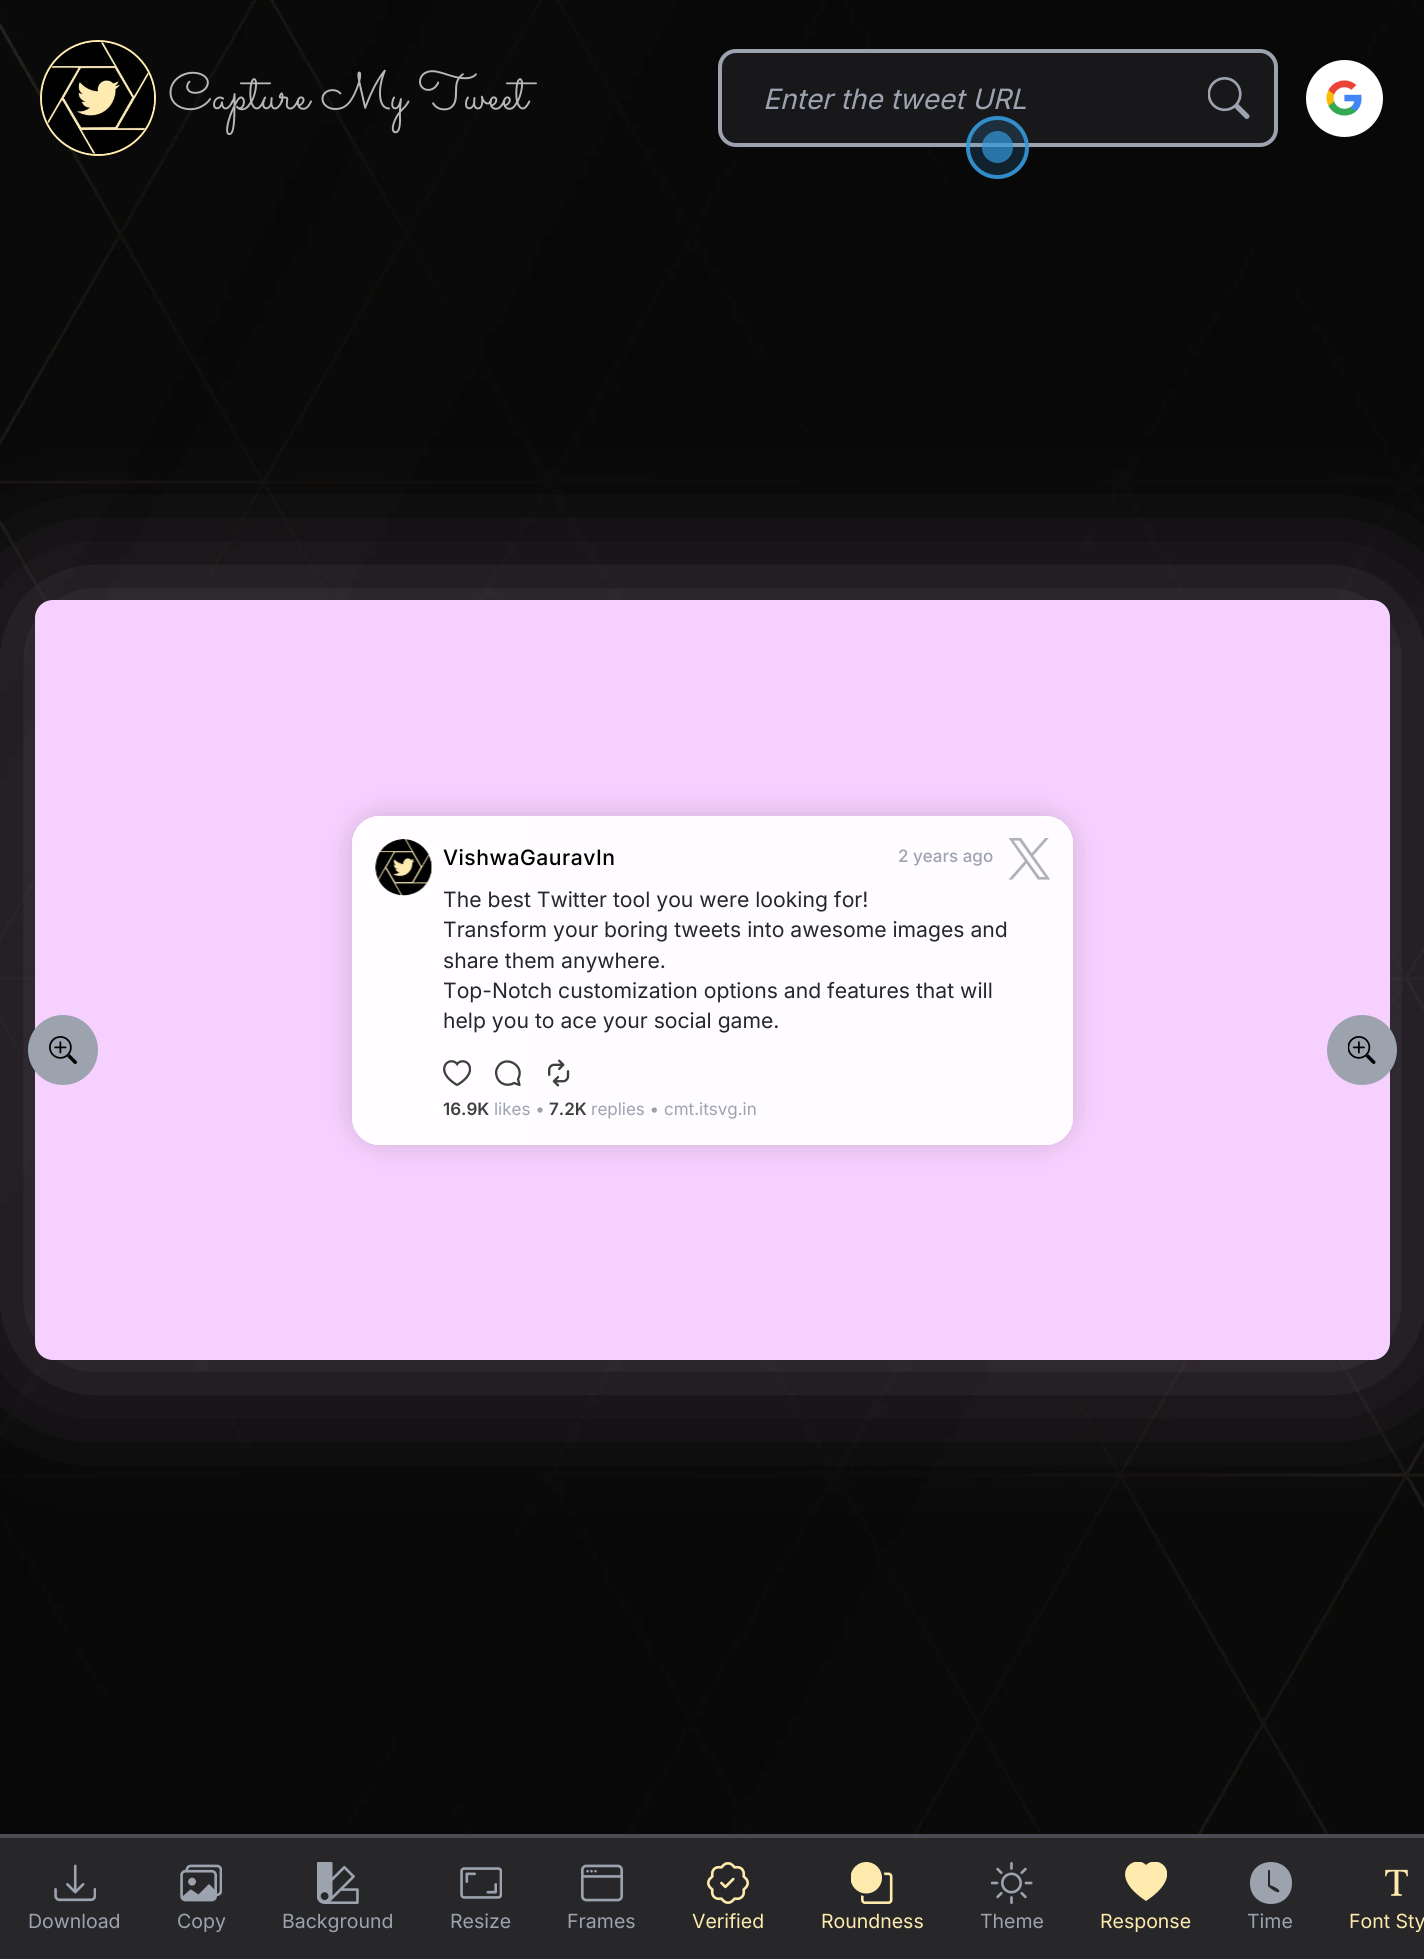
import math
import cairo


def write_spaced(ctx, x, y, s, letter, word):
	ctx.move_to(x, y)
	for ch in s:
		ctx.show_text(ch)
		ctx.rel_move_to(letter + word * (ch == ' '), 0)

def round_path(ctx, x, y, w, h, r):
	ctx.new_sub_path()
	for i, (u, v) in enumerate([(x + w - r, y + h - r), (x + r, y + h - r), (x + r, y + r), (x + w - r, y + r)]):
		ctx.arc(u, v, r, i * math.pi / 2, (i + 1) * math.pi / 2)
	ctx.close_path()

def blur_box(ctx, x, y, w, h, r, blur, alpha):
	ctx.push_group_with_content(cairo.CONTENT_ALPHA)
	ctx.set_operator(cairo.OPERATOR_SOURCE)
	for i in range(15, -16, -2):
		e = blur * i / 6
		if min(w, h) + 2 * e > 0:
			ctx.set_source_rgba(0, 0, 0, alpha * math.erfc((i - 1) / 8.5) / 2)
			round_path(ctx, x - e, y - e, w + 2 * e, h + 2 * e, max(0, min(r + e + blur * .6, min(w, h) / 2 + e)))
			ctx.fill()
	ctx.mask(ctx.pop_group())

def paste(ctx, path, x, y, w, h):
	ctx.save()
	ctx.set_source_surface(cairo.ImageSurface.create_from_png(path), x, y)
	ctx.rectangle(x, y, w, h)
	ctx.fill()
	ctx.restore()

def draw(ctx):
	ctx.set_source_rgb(1, 1, 1)
	ctx.paint()
	paste(ctx, 'media/1.png', 0, 0, 1424, 1834)
	ctx.arc(98, 98, 57, 0, 2 * math.pi)
	ctx.set_source_rgb(1, 0.918, 0.682)
	ctx.stroke()
	paste(ctx, 'media/2.png', 42, 42, 112, 112)
	ctx.select_font_face('Sacramento')
	ctx.set_font_size(52.5)
	ctx.set_source_rgb(0.722, 0.722, 0.733)
	ctx.move_to(168, 109)
	ctx.show_text('Capture My Tweet')
	ctx.set_source_rgb(0.094, 0.094, 0.106)
	round_path(ctx, 720, 51, 556, 94, 16)
	ctx.fill_preserve()
	ctx.set_source_rgb(0.612, 0.639, 0.686)
	ctx.set_line_width(4)
	ctx.stroke()
	ctx.select_font_face('Inter', cairo.FONT_SLANT_ITALIC)
	ctx.set_font_size(28)
	ctx.move_to(763, 109)
	ctx.show_text('Enter the tweet URL')
	paste(ctx, 'media/3.png', 1208, 77, 42, 42)
	ctx.set_source_rgb(1, 1, 1)
	ctx.arc(1344.5, 98.5, 38.5, 0, 2 * math.pi)
	ctx.fill()
	paste(ctx, 'media/4.png', 1326, 80, 36, 36)
	ctx.set_source_rgb(0.961, 0.816, 0.996)
	blur_box(ctx, 35, 600, 1355, 760, 18, 70.5, 0.3)
	ctx.set_source_rgb(0.961, 0.816, 0.996)
	round_path(ctx, 35, 600, 1355, 760, 18)
	ctx.fill()
	ctx.set_source_rgb(0.612, 0.639, 0.686)
	ctx.arc(63, 1050, 35, 0, 2 * math.pi)
	ctx.fill()
	paste(ctx, 'media/5.png', 49, 1036, 28, 28)
	ctx.save()
	ctx.set_fill_rule(cairo.FILL_RULE_EVEN_ODD)
	ctx.new_path()
	ctx.move_to(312, 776)
	ctx.line_to(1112, 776)
	ctx.line_to(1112, 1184)
	ctx.line_to(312, 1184)
	ctx.close_path()
	ctx.move_to(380, 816)
	ctx.line_to(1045, 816)
	ctx.curve_to(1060.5, 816, 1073, 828.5, 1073, 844)
	ctx.line_to(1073, 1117)
	ctx.curve_to(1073, 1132.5, 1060.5, 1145, 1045, 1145)
	ctx.line_to(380, 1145)
	ctx.curve_to(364.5, 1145, 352, 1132.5, 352, 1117)
	ctx.line_to(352, 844)
	ctx.curve_to(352, 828.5, 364.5, 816, 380, 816)
	ctx.close_path()
	ctx.clip()
	ctx.set_source_rgb(0, 0, 0)
	blur_box(ctx, 355, 819, 714, 322, 25, 14, 0.2)
	ctx.restore()
	ctx.set_source_rgba(1, 1, 1, 0.9)
	round_path(ctx, 352, 816, 721, 329, 28)
	ctx.fill()
	ctx.save()
	round_path(ctx, 352, 816, 721, 329, 28)
	ctx.clip()
	gradient = cairo.LinearGradient(-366, 980, 353, 980)
	gradient.add_color_stop_rgba(0, 1, 1, 1, 0.6)
	gradient.add_color_stop_rgba(0.74, 1, 1, 1, 0.3)
	ctx.set_source(gradient)
	ctx.rectangle(352, 834, 2, 293)
	ctx.fill()
	gradient = cairo.LinearGradient(353, 980, 1072, 980)
	gradient.add_color_stop_rgba(0, 1, 1, 1, 0.6)
	gradient.add_color_stop_rgba(0.74, 1, 1, 1, 0.3)
	ctx.set_source(gradient)
	ctx.rectangle(354, 816, 717, 329)
	ctx.fill()
	gradient = cairo.LinearGradient(1072, 980, 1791, 980)
	gradient.add_color_stop_rgba(0, 1, 1, 1, 0.6)
	gradient.add_color_stop_rgba(0.74, 1, 1, 1, 0.3)
	ctx.set_source(gradient)
	ctx.rectangle(1071, 834, 2, 293)
	ctx.fill()
	ctx.restore()
	round_path(ctx, 352.5, 816.5, 720, 328, 27.5)
	ctx.set_line_width(1)
	ctx.stroke()
	paste(ctx, 'media/6.png', 375, 839, 57, 57)
	ctx.select_font_face('Inter Medium')
	ctx.set_font_size(21.15)
	ctx.set_source_rgb(0, 0, 0)
	write_spaced(ctx, 443, 865, 'VishwaGauravIn', 0.5, 0)
	ctx.set_font_size(17)
	ctx.set_source_rgb(0.612, 0.639, 0.686)
	ctx.move_to(898, 862)
	ctx.show_text('2 years ago')
	paste(ctx, 'media/7.png', 1008, 838, 42, 42)
	ctx.select_font_face('Inter')
	ctx.set_font_size(21.15)
	ctx.set_source_rgb(0.153, 0.153, 0.165)
	for x, y, s in [
		(443, 907, 'The best Twitter tool you were looking for!'),
		(443, 937, 'Transform your boring tweets into awesome images and'),
		(443, 968, 'share them anywhere.'),
		(443, 998, 'Top-Notch customization options and features that will'),
		(443, 1028, 'help you to ace your social game.'),
	]:
		ctx.move_to(x, y)
		ctx.show_text(s)
	paste(ctx, 'media/8.png', 443, 1060, 28, 26)
	ctx.new_path()
	ctx.move_to(518, 1079)
	ctx.curve_to(526, 1065, 503.5, 1053.5, 497, 1068.5)
	ctx.curve_to(495.5, 1071.5, 496, 1075.5, 497.5, 1078.5)
	ctx.curve_to(500.5, 1084.5, 508, 1086.5, 514, 1083)
	ctx.line_to(519.5, 1085)
	ctx.close_path()
	ctx.set_source_rgb(0.251, 0.247, 0.251)
	ctx.set_line_width(2.3)
	ctx.set_line_join(cairo.LINE_JOIN_ROUND)
	ctx.stroke()
	paste(ctx, 'media/9.png', 548, 1059, 22, 28)
	ctx.select_font_face('Inter SemiBold')
	ctx.set_font_size(17)
	ctx.move_to(443, 1115)
	ctx.show_text('16.9K')
	ctx.select_font_face('Inter')
	ctx.set_source_rgb(0.612, 0.639, 0.686)
	ctx.move_to(494, 1115)
	ctx.show_text('likes •')
	ctx.select_font_face('Inter SemiBold')
	ctx.set_source_rgb(0.251, 0.247, 0.251)
	ctx.move_to(549, 1115)
	ctx.show_text('7.2K')
	ctx.select_font_face('Inter')
	ctx.set_source_rgb(0.612, 0.639, 0.686)
	ctx.move_to(591, 1115)
	ctx.show_text('replies • cmt.itsvg.in')
	ctx.new_path()
	ctx.arc(1362, 1050, 35, 0, 2 * math.pi)
	ctx.fill()
	paste(ctx, 'media/10.png', 1348, 1036, 28, 28)
	ctx.set_source_rgb(0.153, 0.153, 0.165)
	ctx.rectangle(0, 1838, 1424, 121)
	ctx.fill()
	ctx.set_source_rgb(0.29, 0.298, 0.322)
	ctx.rectangle(0, 1834, 1424, 4)
	ctx.fill()
	paste(ctx, 'media/11.png', 54, 1864, 42, 38)
	ctx.set_font_size(19.5)
	ctx.set_source_rgb(0.612, 0.639, 0.686)
	ctx.move_to(28, 1928)
	ctx.show_text('Download')
	paste(ctx, 'media/12.png', 180, 1864, 42, 38)
	ctx.move_to(177, 1928)
	ctx.show_text('Copy')
	paste(ctx, 'media/13.png', 317, 1862, 42, 42)
	ctx.move_to(282, 1928)
	ctx.show_text('Background')
	paste(ctx, 'media/14.png', 460, 1867, 42, 32)
	ctx.move_to(450, 1928)
	ctx.show_text('Resize')
	paste(ctx, 'media/15.png', 581, 1864, 42, 38)
	ctx.move_to(567, 1928)
	ctx.show_text('Frames')
	paste(ctx, 'media/16.png', 707, 1862, 42, 42)
	ctx.set_source_rgb(1, 0.918, 0.682)
	ctx.move_to(692, 1928)
	ctx.show_text('Verified')
	paste(ctx, 'media/17.png', 851, 1862, 42, 42)
	ctx.move_to(821, 1928)
	ctx.show_text('Roundness')
	paste(ctx, 'media/18.png', 991, 1862, 42, 42)
	ctx.set_source_rgb(0.612, 0.639, 0.686)
	ctx.move_to(980, 1928)
	ctx.show_text('Theme')
	ctx.save()
	ctx.rectangle(1125, 1862, 42, 42)
	ctx.clip()
	ctx.set_source_rgb(1, 0.918, 0.682)
	ctx.set_fill_rule(cairo.FILL_RULE_EVEN_ODD)
	ctx.new_path()
	ctx.move_to(1146, 1865)
	ctx.curve_to(1158, 1853, 1187, 1874, 1146, 1901)
	ctx.curve_to(1105, 1874, 1135, 1853, 1146, 1865)
	ctx.close_path()
	ctx.fill()
	ctx.restore()
	ctx.set_source_rgb(1, 0.918, 0.682)
	ctx.move_to(1100, 1928)
	ctx.show_text('Response')
	ctx.set_source_rgb(0.612, 0.639, 0.686)
	ctx.new_path()
	ctx.move_to(1292, 1883)
	ctx.curve_to(1292, 1911, 1250, 1911, 1250, 1883)
	ctx.curve_to(1250, 1855, 1292, 1855, 1292, 1883)
	ctx.close_path()
	ctx.move_to(1270, 1871)
	ctx.curve_to(1270, 1870, 1268, 1869, 1268, 1871)
	ctx.line_to(1268, 1886)
	ctx.curve_to(1268, 1887, 1278, 1894, 1279, 1892)
	ctx.curve_to(1281, 1889, 1272, 1886, 1270, 1885)
	ctx.close_path()
	ctx.fill()
	ctx.move_to(1247, 1928)
	ctx.show_text('Time')
	paste(ctx, 'media/19.png', 1385, 1869, 23, 27)
	ctx.set_source_rgb(1, 0.918, 0.682)
	ctx.move_to(1349, 1928)
	ctx.show_text('Font Sty')
	ctx.set_source_rgba(0.204, 0.596, 0.859, 0.7)
	round_path(ctx, 982, 131, 31, 32, 15.5)
	ctx.fill()
	ctx.set_source_rgba(0.204, 0.596, 0.859, 0.18)
	ctx.arc(997.5, 147.5, 31.5, 0, 2 * math.pi)
	ctx.fill()
	ctx.arc(997.5, 147.5, 29.5, 0, 2 * math.pi)
	ctx.set_source_rgba(0.204, 0.596, 0.859, 0.9)
	ctx.set_line_width(4)
	ctx.set_line_join(cairo.LINE_JOIN_MITER)
	ctx.stroke()


surface = cairo.ImageSurface(cairo.FORMAT_RGB24, 1424, 1959)
ctx = cairo.Context(surface)
options = cairo.FontOptions()
options.set_hint_metrics(cairo.HINT_METRICS_OFF)
options.set_hint_style(cairo.HINT_STYLE_NONE)
ctx.set_font_options(options)
ctx.set_miter_limit(4)
draw(ctx)
surface.write_to_png('image.png')
